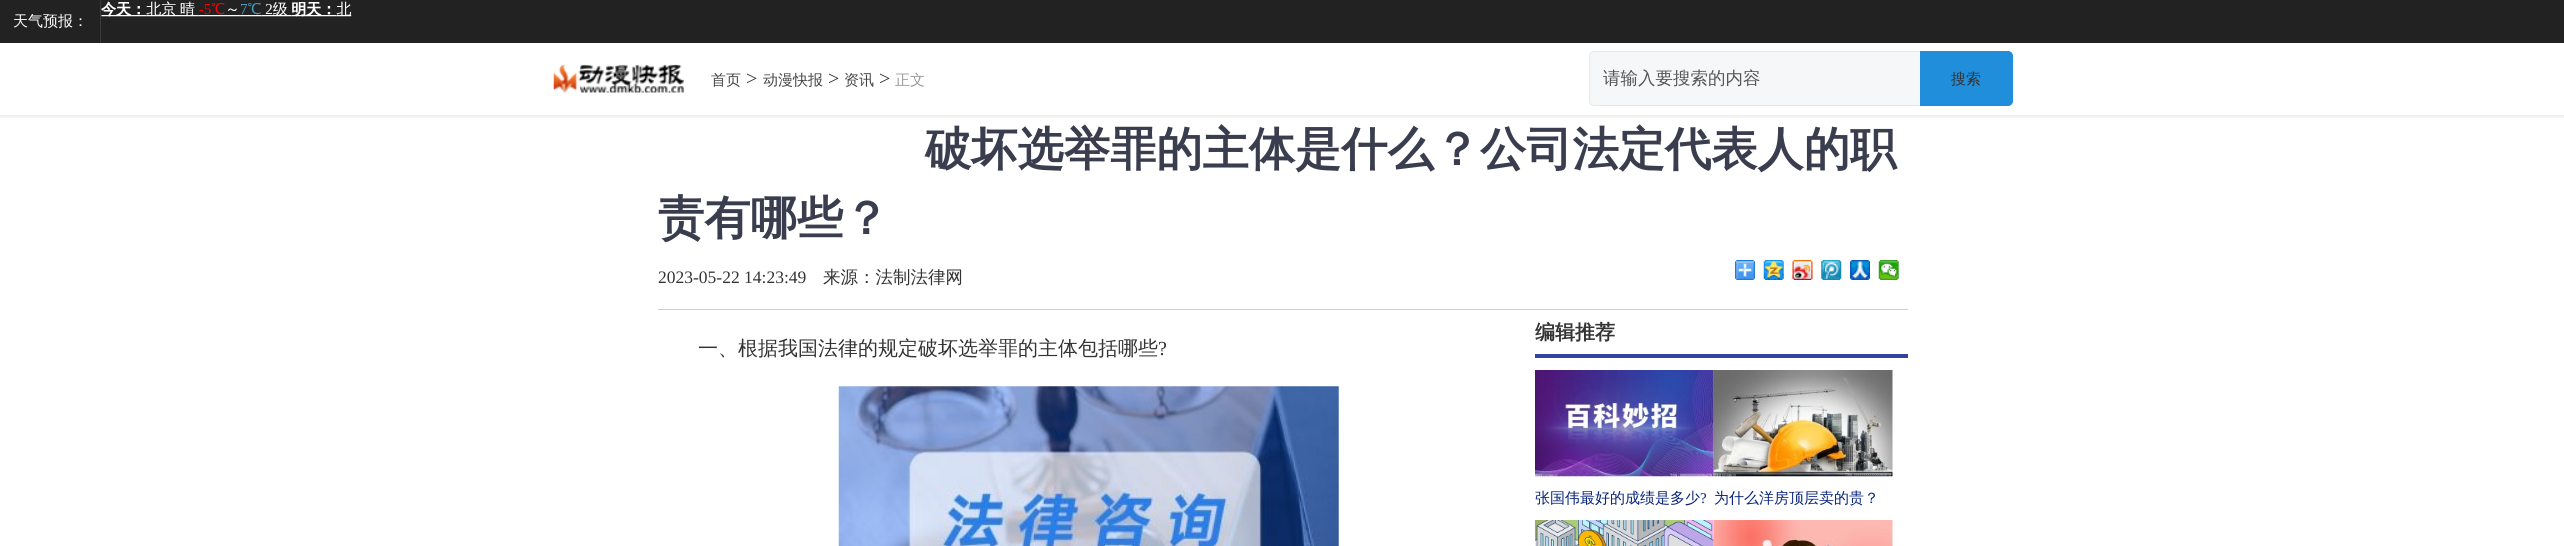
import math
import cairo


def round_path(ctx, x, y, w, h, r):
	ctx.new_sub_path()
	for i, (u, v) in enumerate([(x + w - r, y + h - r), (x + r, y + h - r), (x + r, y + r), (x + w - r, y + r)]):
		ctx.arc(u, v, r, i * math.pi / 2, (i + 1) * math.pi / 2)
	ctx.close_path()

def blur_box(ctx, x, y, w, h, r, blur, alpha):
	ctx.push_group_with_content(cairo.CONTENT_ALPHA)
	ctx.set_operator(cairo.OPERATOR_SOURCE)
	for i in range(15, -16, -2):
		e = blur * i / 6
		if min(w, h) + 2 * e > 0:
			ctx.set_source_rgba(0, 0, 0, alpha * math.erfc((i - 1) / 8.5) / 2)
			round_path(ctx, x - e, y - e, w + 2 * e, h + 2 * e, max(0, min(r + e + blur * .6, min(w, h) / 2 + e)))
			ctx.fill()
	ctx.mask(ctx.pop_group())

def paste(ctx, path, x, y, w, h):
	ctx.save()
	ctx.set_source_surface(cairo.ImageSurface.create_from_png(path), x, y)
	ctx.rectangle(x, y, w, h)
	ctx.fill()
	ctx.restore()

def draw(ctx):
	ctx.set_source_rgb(1, 1, 1)
	ctx.paint()
	ctx.set_source_rgb(0.133, 0.133, 0.133)
	ctx.rectangle(0, 0, 2564, 43)
	ctx.fill()
	paste(ctx, 'media/1.png', 101, 1, 251, 16)
	ctx.save()
	ctx.rectangle(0, 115, 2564, 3)
	ctx.clip()
	ctx.set_source_rgb(0, 0, 0)
	blur_box(ctx, 0, 44, 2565, 72, 0, 2.5, 0.12)
	ctx.restore()
	ctx.set_source_rgb(0.227, 0.227, 0.227)
	ctx.rectangle(100, 0, 1, 43)
	ctx.fill()
	ctx.select_font_face('WenQuanYi Zen Hei Medium')
	ctx.set_font_size(15)
	ctx.set_source_rgb(1, 1, 1)
	ctx.move_to(13, 26)
	ctx.show_text('天气预报：')
	paste(ctx, 'media/2.png', 553, 64, 131, 29)
	ctx.set_source_rgb(0.267, 0.267, 0.267)
	ctx.move_to(711, 85)
	ctx.show_text('首页')
	ctx.select_font_face('Liberation Serif')
	ctx.set_font_size(20)
	ctx.set_source_rgb(0.2, 0.2, 0.2)
	ctx.move_to(746, 85)
	ctx.show_text('>')
	ctx.select_font_face('WenQuanYi Zen Hei Medium')
	ctx.set_font_size(15)
	ctx.set_source_rgb(0.267, 0.267, 0.267)
	ctx.move_to(763, 85)
	ctx.show_text('动漫快报')
	ctx.select_font_face('Liberation Serif')
	ctx.set_font_size(20)
	ctx.set_source_rgb(0.2, 0.2, 0.2)
	ctx.move_to(828, 85)
	ctx.show_text('>')
	ctx.select_font_face('WenQuanYi Zen Hei Medium')
	ctx.set_font_size(15)
	ctx.set_source_rgb(0.267, 0.267, 0.267)
	ctx.move_to(844, 85)
	ctx.show_text('资讯')
	ctx.select_font_face('Liberation Serif')
	ctx.set_font_size(20)
	ctx.set_source_rgb(0.2, 0.2, 0.2)
	ctx.move_to(879, 85)
	ctx.show_text('>')
	ctx.select_font_face('WenQuanYi Zen Hei Medium')
	ctx.set_font_size(15)
	ctx.set_source_rgb(0.6, 0.6, 0.6)
	ctx.move_to(895, 85)
	ctx.show_text('正文')
	ctx.set_source_rgb(0.961, 0.965, 0.969)
	ctx.new_path()
	ctx.move_to(1594, 51.5)
	ctx.line_to(1920.5, 51.5)
	ctx.line_to(1920.5, 105.5)
	ctx.line_to(1594, 105.5)
	ctx.curve_to(1591.5, 105.5, 1589.5, 103.5, 1589.5, 101)
	ctx.line_to(1589.5, 56)
	ctx.curve_to(1589.5, 53.5, 1591.5, 51.5, 1594, 51.5)
	ctx.close_path()
	ctx.fill_preserve()
	ctx.set_source_rgb(0.91, 0.91, 0.91)
	ctx.set_line_width(1)
	ctx.stroke()
	ctx.set_font_size(17.5)
	ctx.set_source_rgb(0.333, 0.333, 0.333)
	ctx.move_to(1603, 84)
	ctx.show_text('请输入要搜索的内容')
	ctx.set_source_rgb(0.125, 0.557, 0.855)
	ctx.new_path()
	ctx.move_to(1920.5, 51.5)
	ctx.line_to(2008, 51.5)
	ctx.curve_to(2010.5, 51.5, 2012.5, 53.5, 2012.5, 56)
	ctx.line_to(2012.5, 101)
	ctx.curve_to(2012.5, 103.5, 2010.5, 105.5, 2008, 105.5)
	ctx.line_to(1920.5, 105.5)
	ctx.close_path()
	ctx.fill_preserve()
	ctx.stroke()
	ctx.set_font_size(15)
	ctx.set_source_rgb(0.2, 0.2, 0.2)
	ctx.move_to(1951, 84)
	ctx.show_text('搜索')
	ctx.set_source_rgb(0.824, 0.808, 0.808)
	ctx.rectangle(658, 309, 1250, 1)
	ctx.fill()
	ctx.select_font_face('WenQuanYi Zen Hei', cairo.FONT_SLANT_NORMAL, cairo.FONT_WEIGHT_BOLD)
	ctx.set_font_size(46.25)
	ctx.set_source_rgb(0.227, 0.239, 0.306)
	ctx.move_to(925, 165)
	ctx.show_text('破坏选举罪的主体是什么？公司法定代表人的职')
	ctx.move_to(658, 234)
	ctx.show_text('责有哪些？')
	ctx.select_font_face('Liberation Serif')
	ctx.set_font_size(17.5)
	ctx.set_source_rgb(0.2, 0.2, 0.2)
	ctx.move_to(658, 283)
	ctx.show_text('2023-05-22 14:23:49')
	ctx.select_font_face('WenQuanYi Zen Hei Medium')
	ctx.move_to(823, 283)
	ctx.show_text('来源：法制法律网')
	paste(ctx, 'media/3.png', 1735, 260, 20, 20)
	paste(ctx, 'media/4.png', 1763, 260, 21, 20)
	paste(ctx, 'media/5.png', 1792, 260, 21, 20)
	paste(ctx, 'media/6.png', 1821, 260, 21, 20)
	paste(ctx, 'media/7.png', 1850, 260, 20, 20)
	paste(ctx, 'media/8.png', 1878, 260, 21, 20)
	ctx.set_font_size(20)
	ctx.move_to(698, 355)
	ctx.show_text('一、根据我国法律的规定破坏选举罪的主体包括哪些')
	ctx.select_font_face('Liberation Serif')
	ctx.move_to(1158, 355)
	ctx.show_text('?')
	paste(ctx, 'media/9.png', 838, 386, 501, 160)
	ctx.set_source_rgb(0.192, 0.259, 0.624)
	ctx.rectangle(1535, 354, 373, 4)
	ctx.fill()
	ctx.select_font_face('WenQuanYi Zen Hei', cairo.FONT_SLANT_NORMAL, cairo.FONT_WEIGHT_BOLD)
	ctx.set_source_rgb(0.2, 0.2, 0.2)
	ctx.move_to(1535, 339)
	ctx.show_text('编辑推荐')
	paste(ctx, 'media/10.png', 1535, 370, 179, 107)
	ctx.select_font_face('WenQuanYi Zen Hei Medium')
	ctx.set_font_size(15)
	ctx.set_source_rgb(0.027, 0.137, 0.478)
	ctx.move_to(1535, 503)
	ctx.show_text('张国伟最好的成绩是多少')
	ctx.select_font_face('Liberation Serif')
	ctx.move_to(1700, 503)
	ctx.show_text('?')
	paste(ctx, 'media/11.png', 1713, 370, 180, 107)
	ctx.select_font_face('WenQuanYi Zen Hei Medium')
	ctx.move_to(1714, 503)
	ctx.show_text('为什么洋房顶层卖的贵？')
	paste(ctx, 'media/12.png', 1535, 520, 179, 26)
	paste(ctx, 'media/13.png', 1713, 520, 180, 26)


surface = cairo.ImageSurface(cairo.FORMAT_RGB24, 2564, 546)
ctx = cairo.Context(surface)
options = cairo.FontOptions()
options.set_hint_metrics(cairo.HINT_METRICS_OFF)
options.set_hint_style(cairo.HINT_STYLE_NONE)
ctx.set_font_options(options)
ctx.set_miter_limit(4)
draw(ctx)
surface.write_to_png('image.png')
